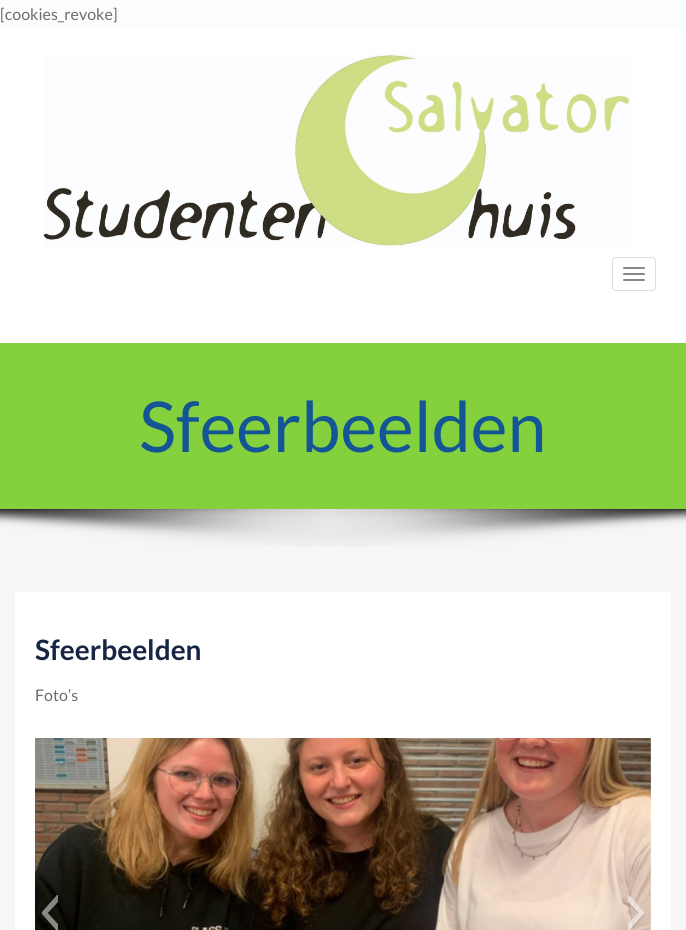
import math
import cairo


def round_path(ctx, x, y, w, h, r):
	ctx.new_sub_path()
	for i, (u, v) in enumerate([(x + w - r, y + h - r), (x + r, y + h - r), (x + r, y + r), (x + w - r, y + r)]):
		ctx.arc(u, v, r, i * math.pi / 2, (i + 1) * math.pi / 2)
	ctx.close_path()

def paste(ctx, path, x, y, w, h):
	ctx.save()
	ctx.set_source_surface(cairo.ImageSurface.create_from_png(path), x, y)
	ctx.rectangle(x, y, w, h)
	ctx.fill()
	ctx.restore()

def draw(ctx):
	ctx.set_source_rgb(1, 1, 1)
	ctx.paint()
	paste(ctx, 'media/1.png', 0, 0, 686, 29)
	ctx.select_font_face('Lato')
	ctx.set_font_size(16)
	ctx.set_source_rgb(0.427, 0.427, 0.427)
	ctx.move_to(0, 20)
	ctx.show_text('[cookies_revoke]')
	ctx.set_source_rgb(0.961, 0.961, 0.961)
	ctx.rectangle(0, 509, 686, 421)
	ctx.fill()
	paste(ctx, 'media/2.png', 43, 54, 587, 193)
	round_path(ctx, 612.5, 257.5, 43, 33, 3.5)
	ctx.set_source_rgb(0.867, 0.867, 0.867)
	ctx.set_line_width(1)
	ctx.stroke()
	ctx.set_source_rgb(0.533, 0.533, 0.533)
	round_path(ctx, 623, 267, 22, 2, 1)
	ctx.fill()
	round_path(ctx, 623, 273, 22, 2, 1)
	ctx.fill()
	round_path(ctx, 623, 279, 22, 2, 1)
	ctx.fill()
	ctx.set_source_rgb(0.522, 0.82, 0.239)
	ctx.rectangle(0, 343, 686, 166)
	ctx.fill()
	ctx.set_font_size(70)
	ctx.set_source_rgb(0.082, 0.333, 0.588)
	ctx.move_to(139, 452)
	ctx.show_text('Sfeerbeelden')
	paste(ctx, 'media/3.png', 0, 509, 686, 38)
	ctx.set_source_rgb(1, 1, 1)
	ctx.rectangle(15, 592, 656, 338)
	ctx.fill()
	ctx.select_font_face('Lato', cairo.FONT_SLANT_NORMAL, cairo.FONT_WEIGHT_BOLD)
	ctx.set_font_size(28)
	ctx.set_source_rgb(0.086, 0.145, 0.255)
	ctx.move_to(35, 660)
	ctx.show_text('Sfeerbeelden')
	ctx.select_font_face('Lato')
	ctx.set_font_size(16)
	ctx.set_source_rgb(0.427, 0.427, 0.427)
	ctx.move_to(35, 701)
	ctx.show_text('Foto’s')
	paste(ctx, 'media/4.png', 35, 738, 616, 192)
	paste(ctx, 'media/5.png', 42, 895, 16, 35)
	paste(ctx, 'media/6.png', 628, 895, 16, 35)


surface = cairo.ImageSurface(cairo.FORMAT_RGB24, 686, 930)
ctx = cairo.Context(surface)
options = cairo.FontOptions()
options.set_hint_metrics(cairo.HINT_METRICS_OFF)
options.set_hint_style(cairo.HINT_STYLE_NONE)
ctx.set_font_options(options)
ctx.set_miter_limit(4)
draw(ctx)
surface.write_to_png('image.png')
